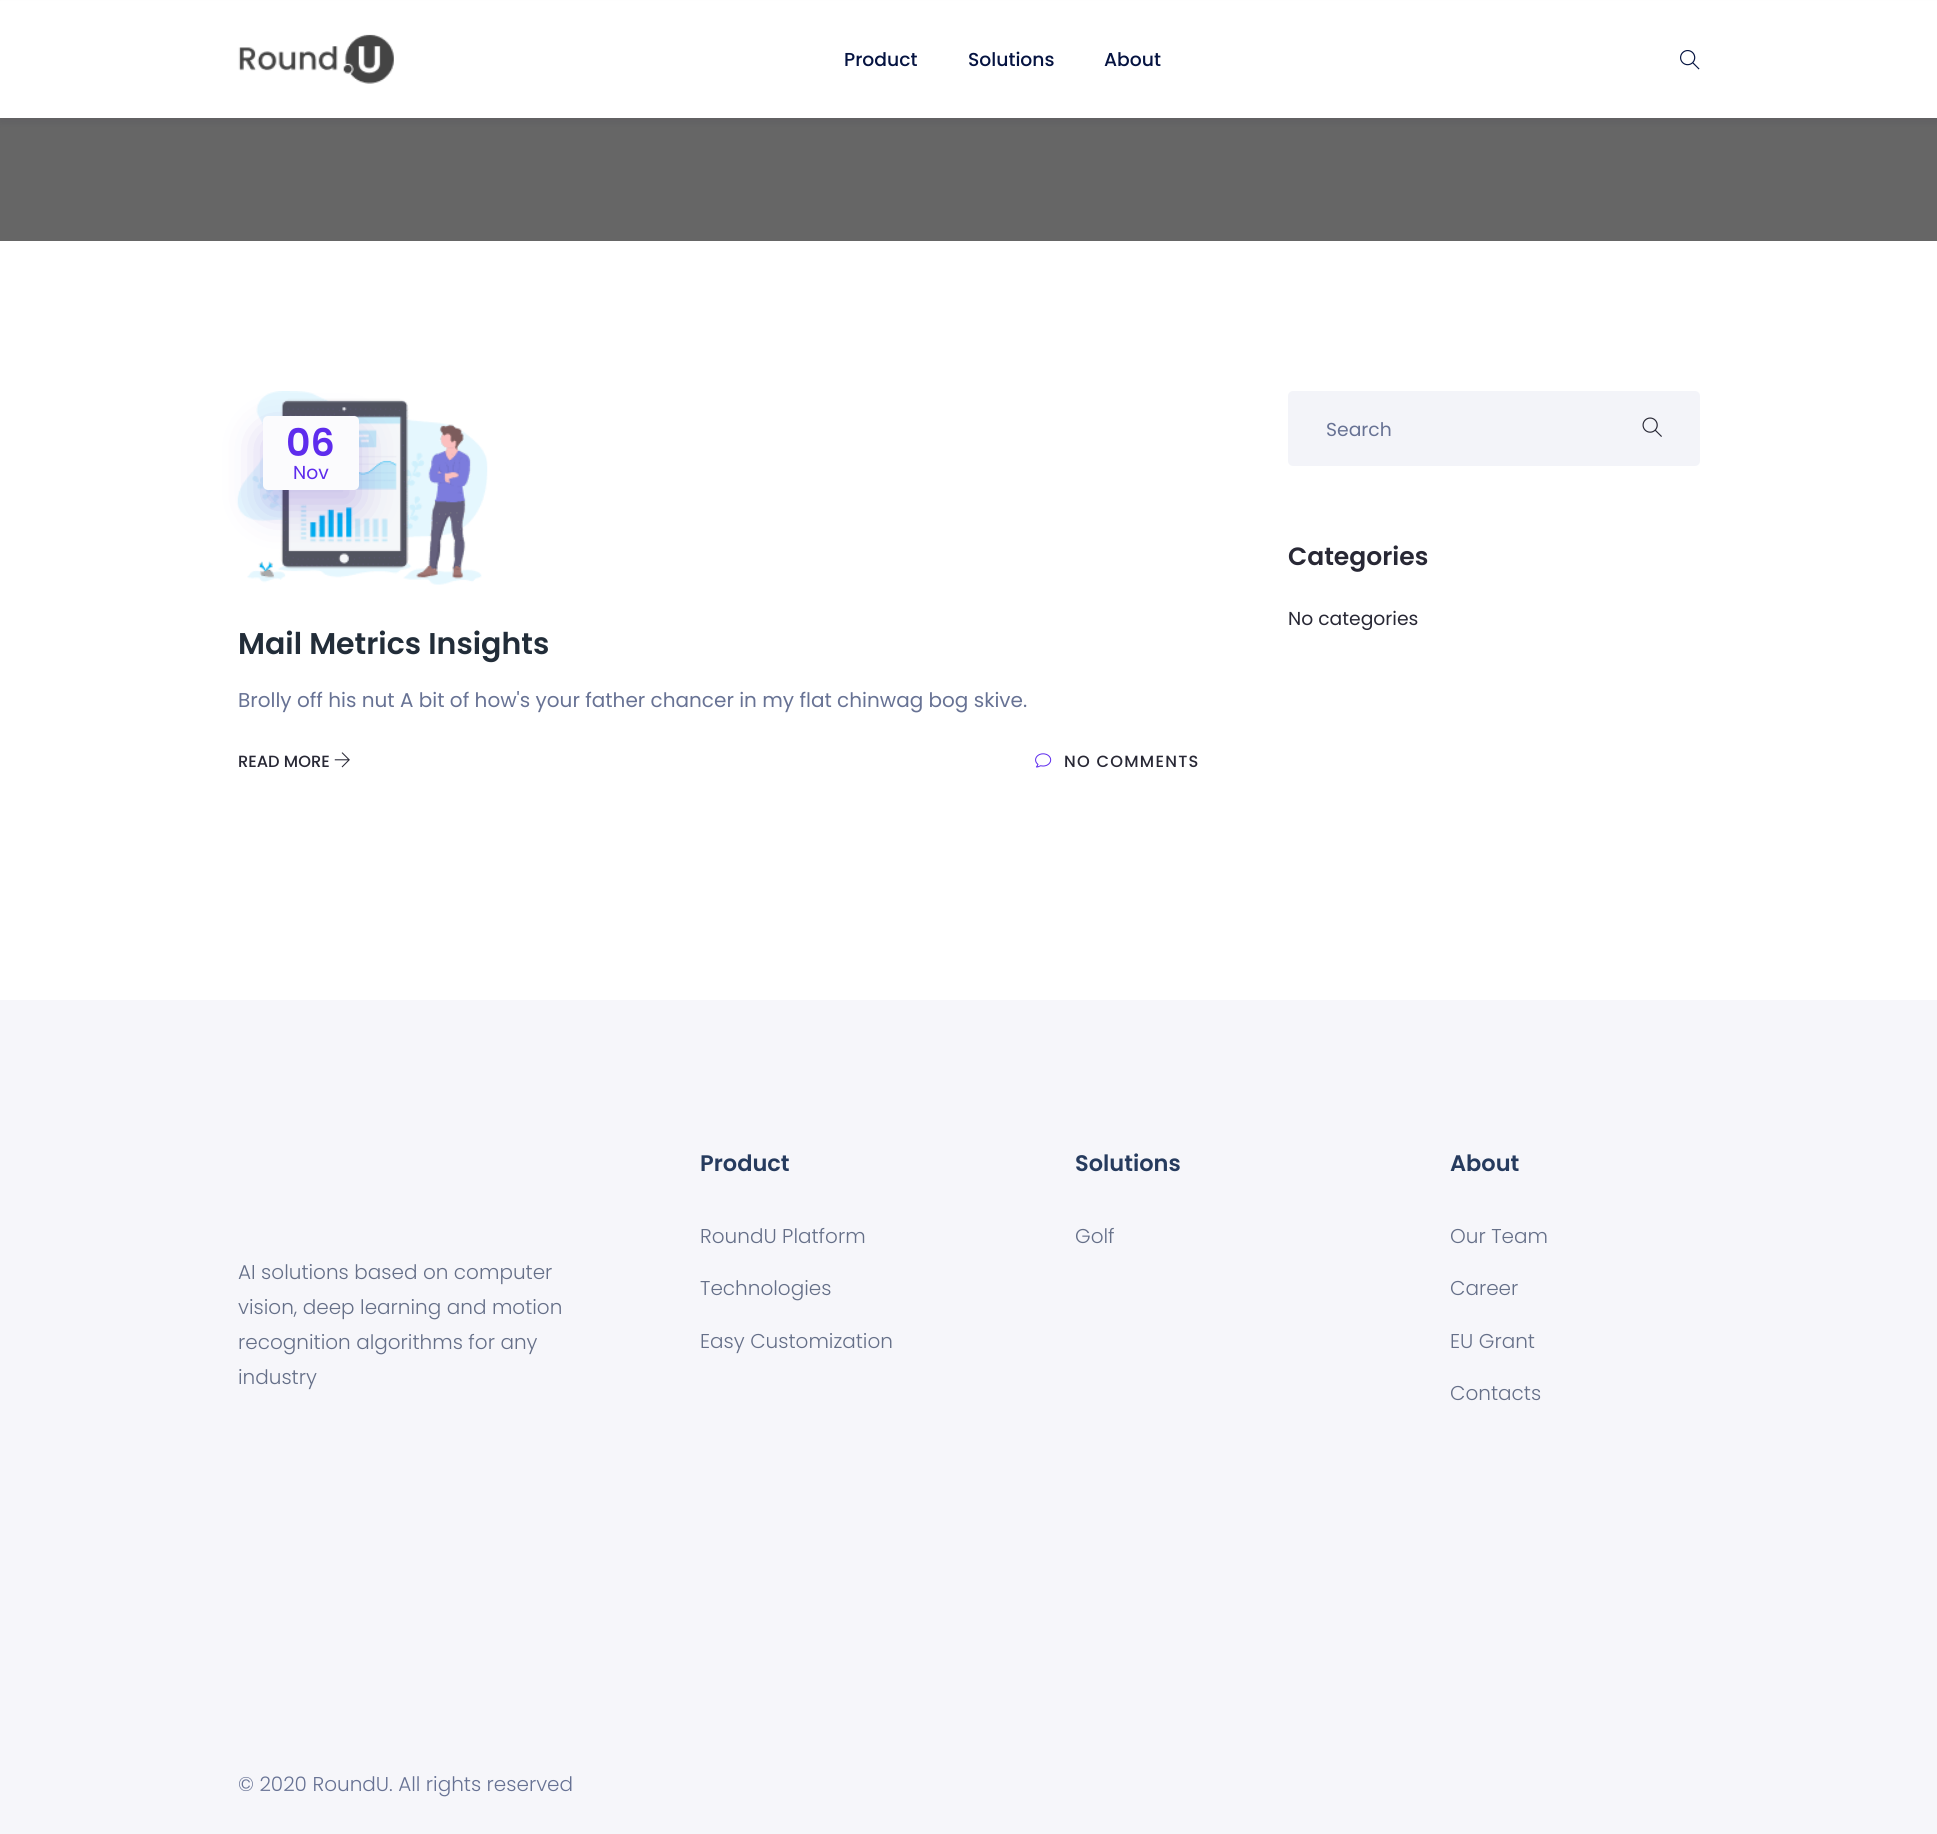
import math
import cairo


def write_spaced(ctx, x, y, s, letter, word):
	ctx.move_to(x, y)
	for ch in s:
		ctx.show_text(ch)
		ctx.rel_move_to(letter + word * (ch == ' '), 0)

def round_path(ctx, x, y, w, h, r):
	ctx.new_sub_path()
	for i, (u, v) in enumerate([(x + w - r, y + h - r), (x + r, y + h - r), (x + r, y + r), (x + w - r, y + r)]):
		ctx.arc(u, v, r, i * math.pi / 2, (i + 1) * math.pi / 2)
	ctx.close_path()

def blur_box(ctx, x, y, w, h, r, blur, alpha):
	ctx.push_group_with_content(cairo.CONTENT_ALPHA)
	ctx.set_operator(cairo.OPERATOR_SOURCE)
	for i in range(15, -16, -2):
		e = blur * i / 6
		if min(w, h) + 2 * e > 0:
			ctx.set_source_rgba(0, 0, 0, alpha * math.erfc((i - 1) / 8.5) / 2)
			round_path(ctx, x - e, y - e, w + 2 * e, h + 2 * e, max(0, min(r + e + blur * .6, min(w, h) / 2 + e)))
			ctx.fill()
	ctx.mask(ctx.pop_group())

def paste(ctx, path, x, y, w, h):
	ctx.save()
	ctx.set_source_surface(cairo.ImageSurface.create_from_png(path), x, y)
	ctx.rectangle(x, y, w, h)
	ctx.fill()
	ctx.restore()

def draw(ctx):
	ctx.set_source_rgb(1, 1, 1)
	ctx.paint()
	ctx.set_source_rgb(0.4, 0.4, 0.4)
	ctx.rectangle(0, 118, 1937, 123)
	ctx.fill()
	ctx.set_source_rgb(0.047, 0, 0.18)
	blur_box(ctx, 0, 5, 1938, 118, 0, 4, 0.06)
	ctx.set_source_rgb(1, 1, 1)
	ctx.rectangle(0, 1, 1937, 117)
	ctx.fill()
	paste(ctx, 'media/1.png', 238, 34, 156, 50)
	ctx.select_font_face('Poppins Medium')
	ctx.set_font_size(18.75)
	ctx.set_source_rgb(0.02, 0.078, 0.255)
	for x, y, s in [
		(844, 66, 'Product'),
		(968, 66, 'Solutions'),
		(1104, 66, 'About'),
	]:
		ctx.move_to(x, y)
		ctx.show_text(s)
	paste(ctx, 'media/2.png', 1680, 50, 20, 20)
	paste(ctx, 'media/3.png', 237, 391, 251, 194)
	ctx.set_source_rgb(0.267, 0.11, 0.718)
	blur_box(ctx, 263, 434, 96, 74, 5, 19, 0.25)
	ctx.set_source_rgb(0.984, 0.984, 0.992)
	round_path(ctx, 263, 416, 96, 74, 5)
	ctx.fill()
	ctx.select_font_face('Poppins SemiBold')
	ctx.set_font_size(38)
	ctx.set_source_rgb(0.369, 0.173, 0.929)
	ctx.move_to(286, 456)
	ctx.show_text('06')
	ctx.select_font_face('Poppins')
	ctx.set_font_size(18.75)
	ctx.move_to(293, 479)
	ctx.show_text('Nov')
	ctx.select_font_face('Poppins SemiBold')
	ctx.set_font_size(30)
	ctx.set_source_rgb(0.133, 0.176, 0.224)
	ctx.move_to(238, 654)
	ctx.show_text('Mail Metrics Insights')
	ctx.select_font_face('Poppins')
	ctx.set_font_size(20)
	ctx.set_source_rgb(0.404, 0.447, 0.58)
	ctx.move_to(238, 707)
	ctx.show_text('Brolly off his nut A bit of how\'s your father chancer in my flat chinwag bog skive.')
	ctx.select_font_face('Poppins Medium')
	ctx.set_font_size(16.25)
	ctx.set_source_rgb(0.157, 0.157, 0.208)
	ctx.move_to(238, 767)
	ctx.show_text('READ MORE')
	paste(ctx, 'media/4.png', 334, 752, 16, 16)
	paste(ctx, 'media/5.png', 1035, 753, 17, 15)
	write_spaced(ctx, 1064, 767, 'NO COMMENTS', 1.25, 0)
	ctx.set_source_rgb(0.953, 0.957, 0.976)
	round_path(ctx, 1288, 391, 412, 75, 5)
	ctx.fill()
	ctx.select_font_face('Poppins')
	ctx.set_font_size(18.75)
	ctx.set_source_rgb(0.404, 0.447, 0.58)
	ctx.move_to(1326, 436)
	ctx.show_text('Search')
	paste(ctx, 'media/6.png', 1642, 417, 20, 20)
	ctx.select_font_face('Poppins SemiBold')
	ctx.set_font_size(25)
	ctx.set_source_rgb(0.157, 0.157, 0.208)
	ctx.move_to(1288, 565)
	ctx.show_text('Categories')
	ctx.select_font_face('Poppins')
	ctx.set_font_size(18.75)
	ctx.move_to(1288, 625)
	ctx.show_text('No categories')
	ctx.set_source_rgb(0.961, 0.961, 0.98)
	ctx.rectangle(0, 1000, 1937, 834)
	ctx.fill()
	ctx.select_font_face('Poppins Light')
	ctx.set_font_size(20)
	ctx.set_source_rgb(0.396, 0.435, 0.533)
	for x, y, s in [
		(238, 1279, 'AI solutions based on computer'),
		(238, 1314, 'vision, deep learning and motion'),
		(238, 1349, 'recognition algorithms for any'),
		(238, 1384, 'industry'),
	]:
		ctx.move_to(x, y)
		ctx.show_text(s)
	ctx.select_font_face('Poppins SemiBold')
	ctx.set_font_size(22.5)
	ctx.set_source_rgb(0.149, 0.231, 0.369)
	ctx.move_to(700, 1171)
	ctx.show_text('Product')
	ctx.select_font_face('Poppins Light')
	ctx.set_font_size(20)
	ctx.set_source_rgb(0.396, 0.435, 0.533)
	for x, y, s in [
		(700, 1243, 'RoundU Platform'),
		(700, 1295, 'Technologies'),
		(700, 1348, 'Easy Customization'),
	]:
		ctx.move_to(x, y)
		ctx.show_text(s)
	ctx.select_font_face('Poppins SemiBold')
	ctx.set_font_size(22.5)
	ctx.set_source_rgb(0.149, 0.231, 0.369)
	ctx.move_to(1075, 1171)
	ctx.show_text('Solutions')
	ctx.select_font_face('Poppins Light')
	ctx.set_font_size(20)
	ctx.set_source_rgb(0.396, 0.435, 0.533)
	ctx.move_to(1075, 1243)
	ctx.show_text('Golf')
	ctx.select_font_face('Poppins SemiBold')
	ctx.set_font_size(22.5)
	ctx.set_source_rgb(0.149, 0.231, 0.369)
	ctx.move_to(1450, 1171)
	ctx.show_text('About')
	ctx.select_font_face('Poppins Light')
	ctx.set_font_size(20)
	ctx.set_source_rgb(0.396, 0.435, 0.533)
	for x, y, s in [
		(1450, 1243, 'Our Team'),
		(1450, 1295, 'Career'),
		(1450, 1348, 'EU Grant'),
		(1450, 1400, 'Contacts'),
	]:
		ctx.move_to(x, y)
		ctx.show_text(s)
	ctx.set_source_rgb(0.404, 0.447, 0.58)
	ctx.move_to(238, 1791)
	ctx.show_text('© 2020 RoundU. All rights reserved')


surface = cairo.ImageSurface(cairo.FORMAT_RGB24, 1937, 1834)
ctx = cairo.Context(surface)
options = cairo.FontOptions()
options.set_hint_metrics(cairo.HINT_METRICS_OFF)
options.set_hint_style(cairo.HINT_STYLE_NONE)
ctx.set_font_options(options)
ctx.set_miter_limit(4)
draw(ctx)
surface.write_to_png('image.png')
